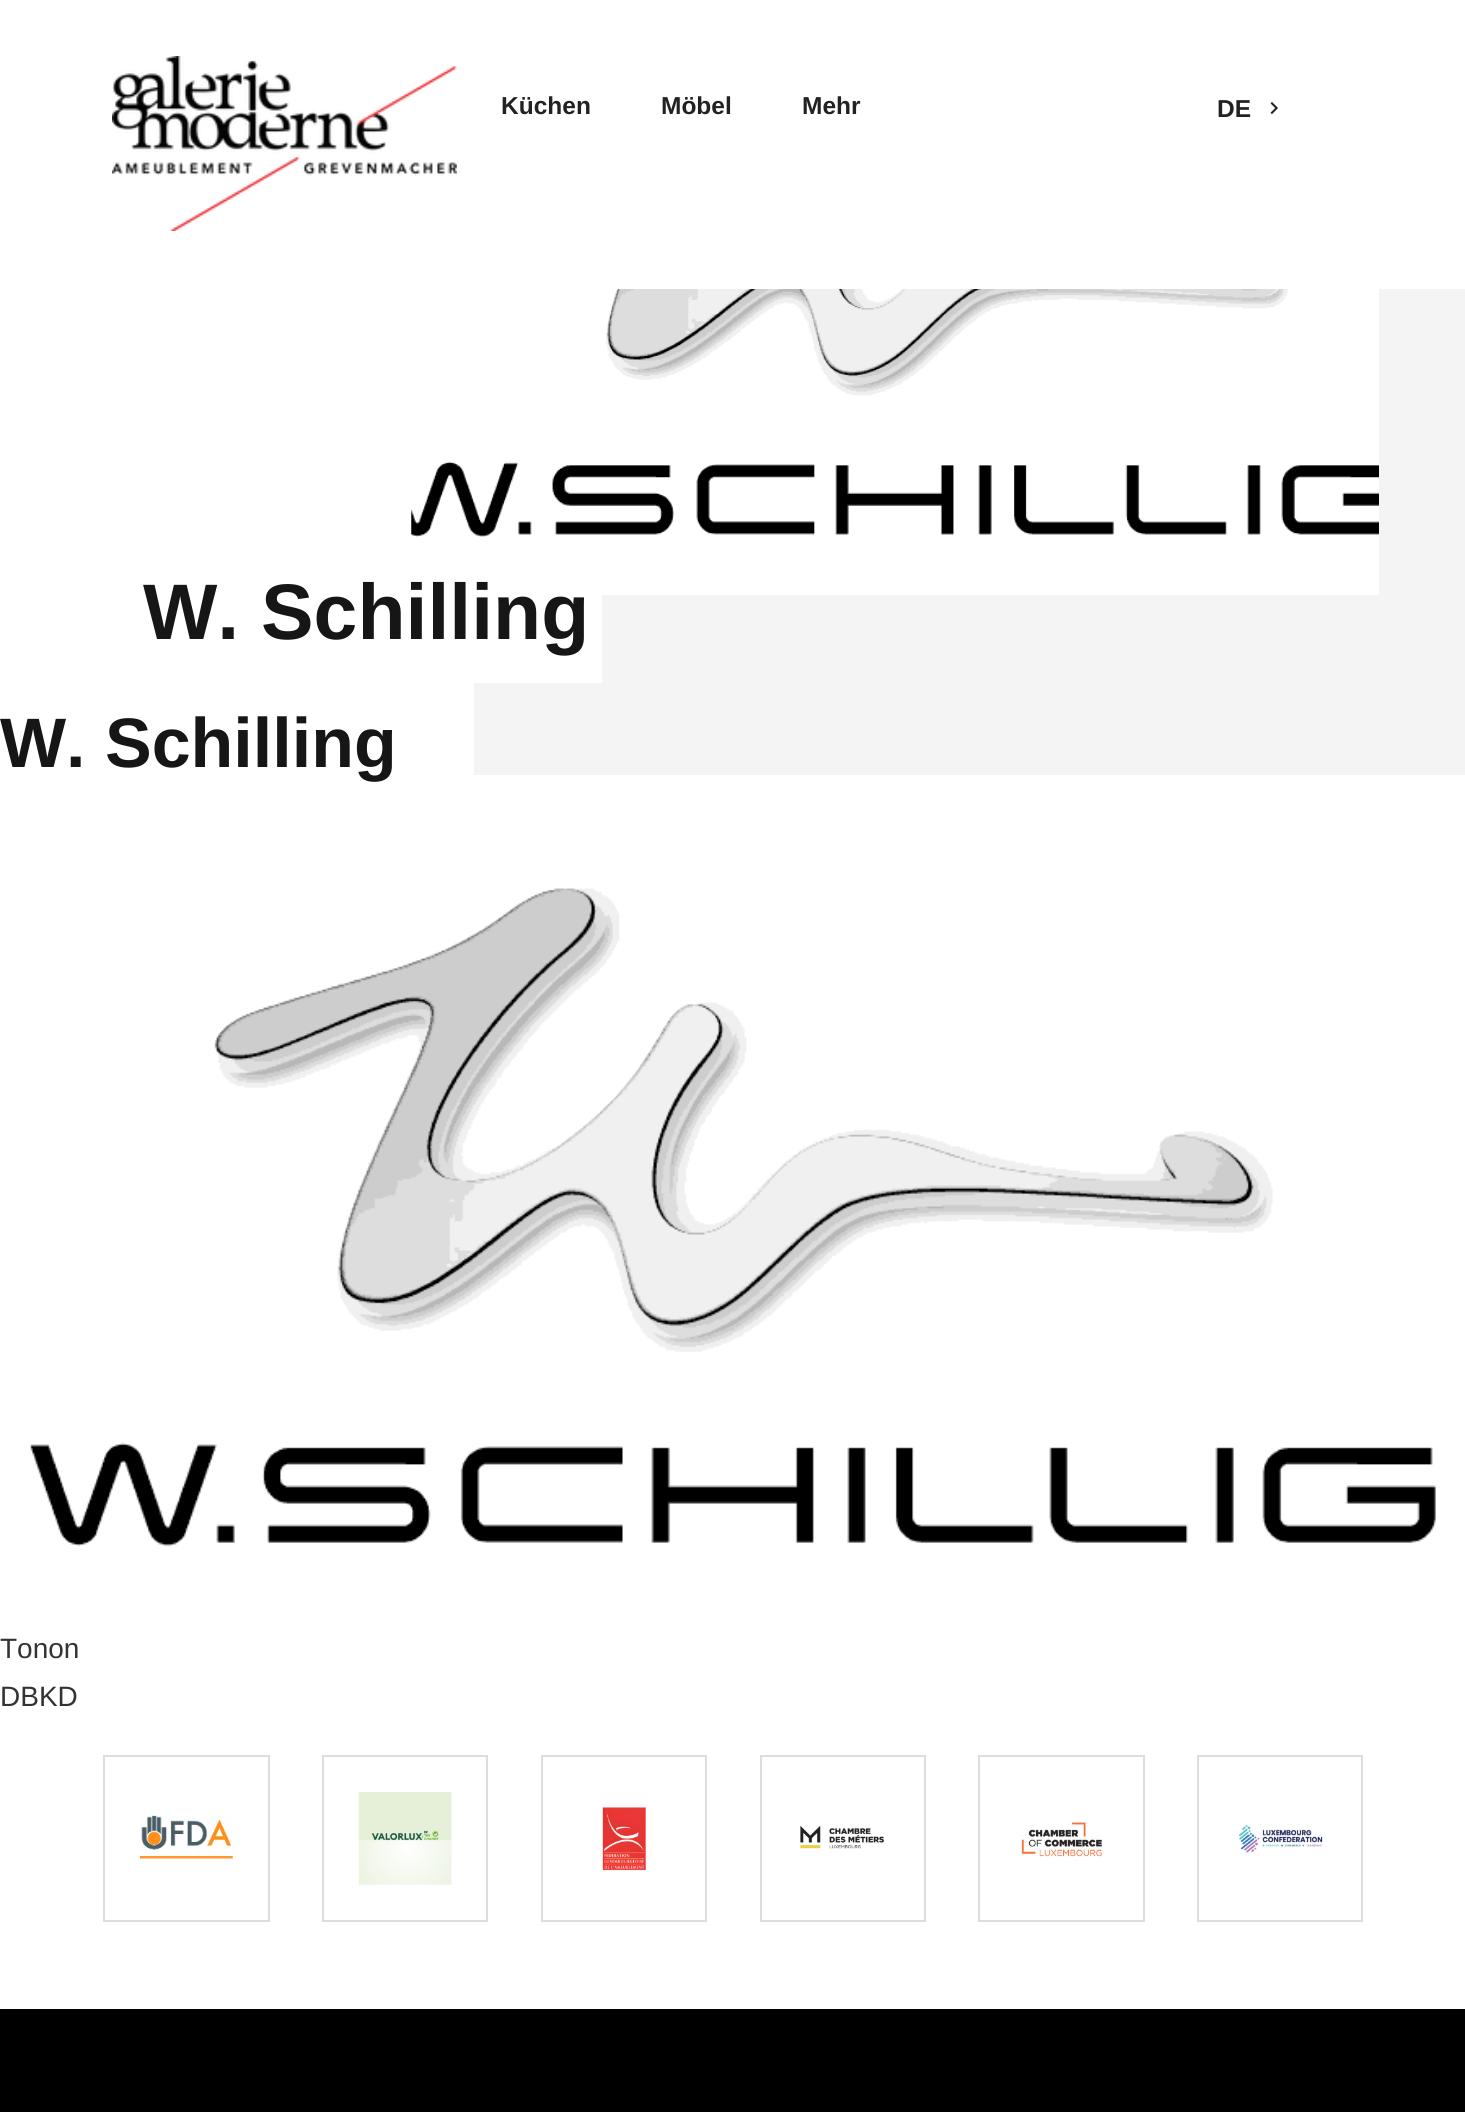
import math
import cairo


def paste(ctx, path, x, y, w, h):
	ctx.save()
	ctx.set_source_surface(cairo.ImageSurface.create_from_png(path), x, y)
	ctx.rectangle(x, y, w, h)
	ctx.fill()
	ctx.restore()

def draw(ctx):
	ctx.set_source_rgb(1, 1, 1)
	ctx.paint()
	paste(ctx, 'media/1.png', 112, 56, 345, 175)
	ctx.select_font_face('Liberation Sans', cairo.FONT_SLANT_NORMAL, cairo.FONT_WEIGHT_BOLD)
	ctx.set_font_size(24.5)
	ctx.set_source_rgb(0.133, 0.133, 0.133)
	for x, y, s in [
		(501, 114, 'Küchen'),
		(661, 114, 'Möbel'),
		(802, 114, 'Mehr'),
		(1217, 117, 'DE'),
	]:
		ctx.move_to(x, y)
		ctx.show_text(s)
	paste(ctx, 'media/2.png', 1270, 102, 8, 13)
	ctx.set_source_rgb(0.957, 0.957, 0.957)
	ctx.rectangle(474, 289, 991, 486)
	ctx.fill()
	ctx.set_source_rgb(1, 1, 1)
	ctx.rectangle(474, 595, 128, 88)
	ctx.fill()
	paste(ctx, 'media/3.png', 411, 289, 968, 306)
	ctx.set_font_size(78.75)
	ctx.set_source_rgb(0.086, 0.086, 0.086)
	ctx.move_to(143, 639)
	ctx.show_text('W. Schilling')
	ctx.set_font_size(70)
	ctx.move_to(0, 767)
	ctx.show_text('W. Schilling')
	paste(ctx, 'media/4.png', 30, 888, 1406, 659)
	ctx.select_font_face('Liberation Sans')
	ctx.set_font_size(28)
	ctx.set_source_rgb(0.2, 0.2, 0.2)
	ctx.move_to(0, 1658)
	ctx.show_text('Tonon')
	ctx.move_to(0, 1706)
	ctx.show_text('DBKD')
	ctx.rectangle(104, 1756, 165, 165)
	ctx.set_source_rgb(0.867, 0.867, 0.867)
	ctx.stroke()
	paste(ctx, 'media/5.png', 140, 1815, 93, 44)
	ctx.rectangle(323, 1756, 164, 165)
	ctx.stroke()
	paste(ctx, 'media/6.png', 358, 1792, 94, 93)
	ctx.rectangle(542, 1756, 164, 165)
	ctx.stroke()
	paste(ctx, 'media/7.png', 602, 1807, 45, 64)
	ctx.rectangle(761, 1756, 164, 165)
	ctx.stroke()
	paste(ctx, 'media/8.png', 799, 1825, 85, 24)
	ctx.rectangle(979, 1756, 165, 165)
	ctx.stroke()
	paste(ctx, 'media/9.png', 1020, 1822, 84, 35)
	ctx.rectangle(1198, 1756, 164, 165)
	ctx.stroke()
	paste(ctx, 'media/10.png', 1238, 1824, 85, 30)
	ctx.set_source_rgb(0, 0, 0)
	ctx.rectangle(0, 2009, 1465, 103)
	ctx.fill()


surface = cairo.ImageSurface(cairo.FORMAT_RGB24, 1465, 2112)
ctx = cairo.Context(surface)
options = cairo.FontOptions()
options.set_hint_metrics(cairo.HINT_METRICS_OFF)
options.set_hint_style(cairo.HINT_STYLE_NONE)
ctx.set_font_options(options)
ctx.set_miter_limit(4)
draw(ctx)
surface.write_to_png('image.png')
